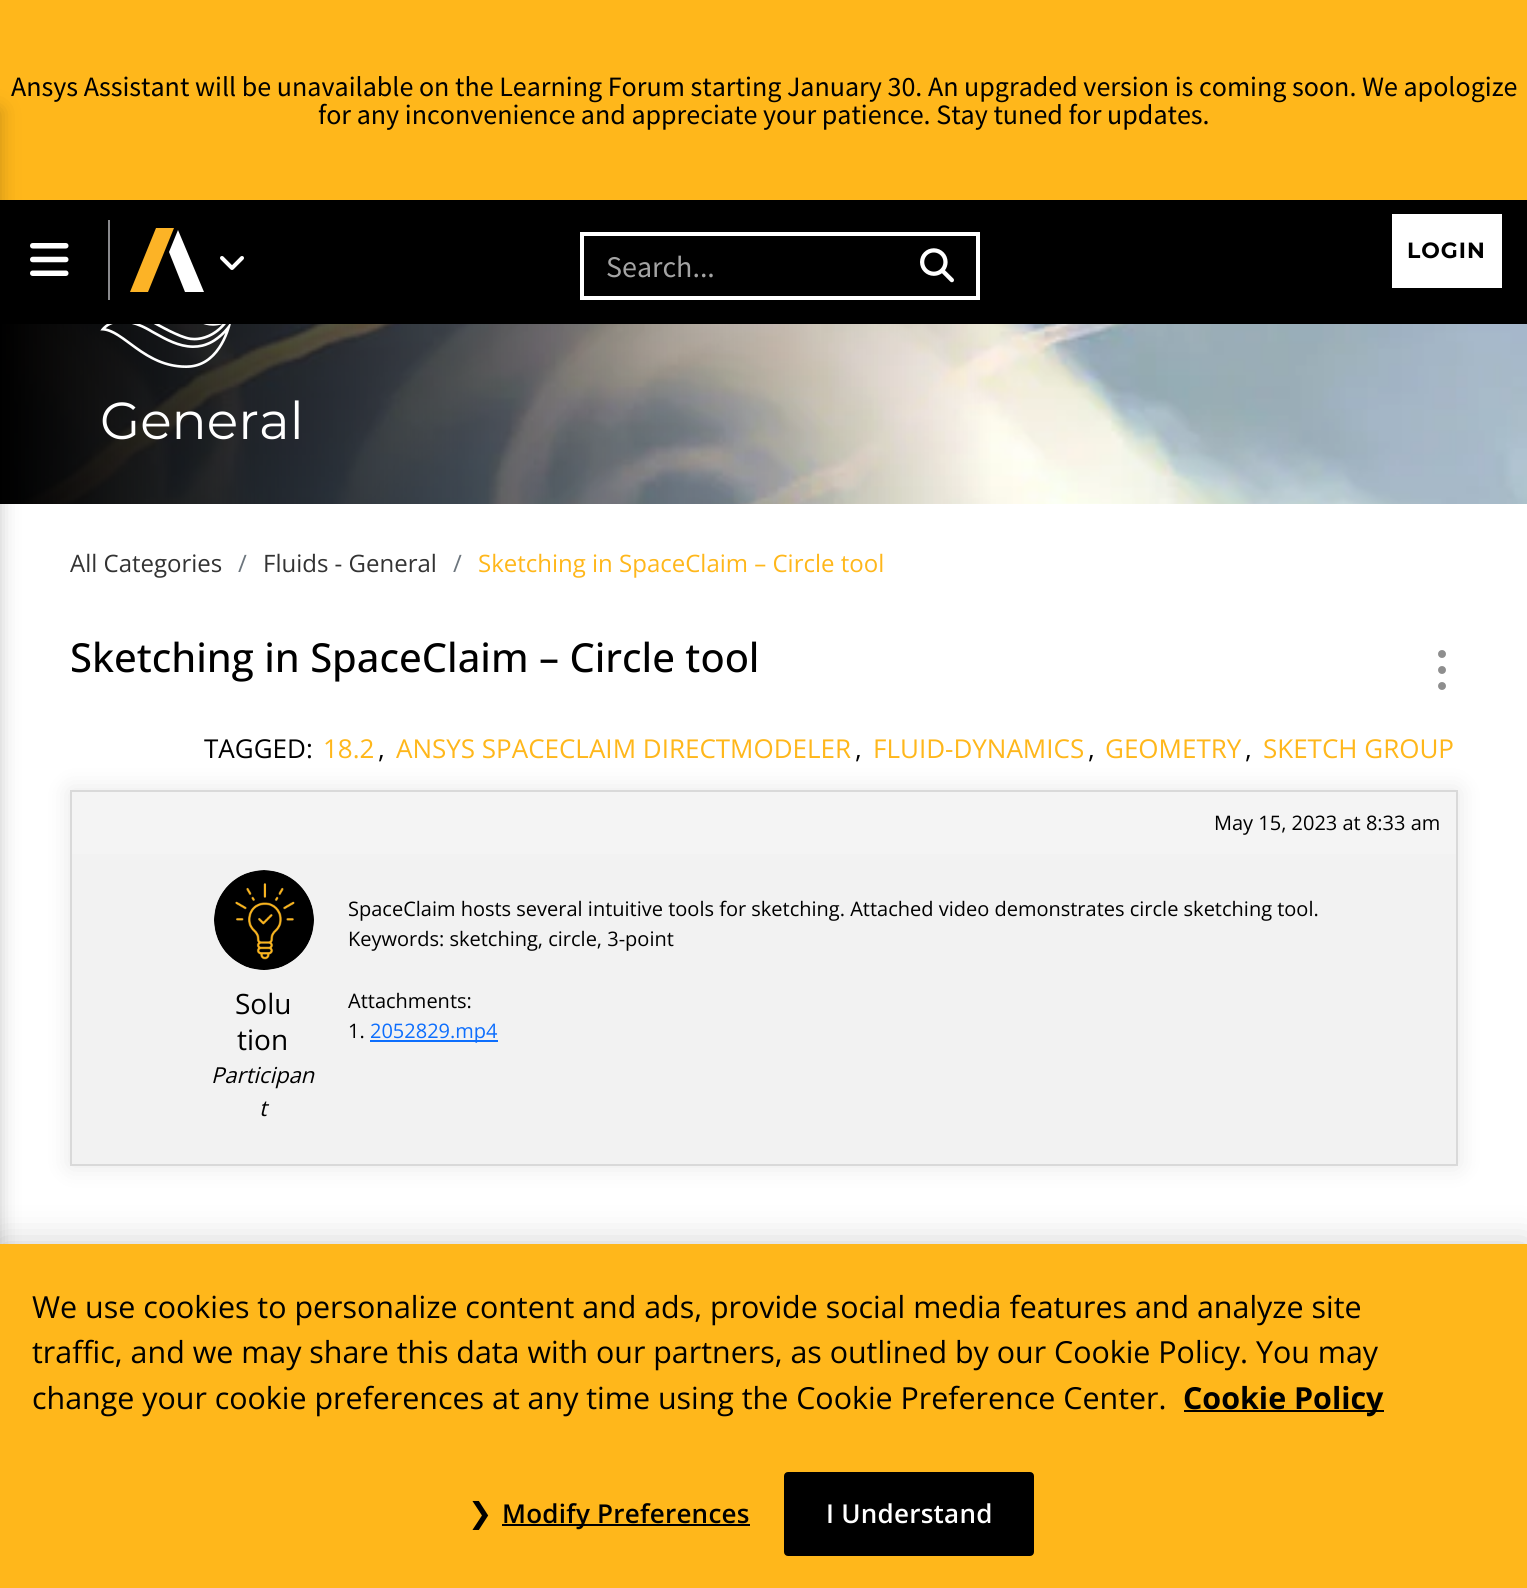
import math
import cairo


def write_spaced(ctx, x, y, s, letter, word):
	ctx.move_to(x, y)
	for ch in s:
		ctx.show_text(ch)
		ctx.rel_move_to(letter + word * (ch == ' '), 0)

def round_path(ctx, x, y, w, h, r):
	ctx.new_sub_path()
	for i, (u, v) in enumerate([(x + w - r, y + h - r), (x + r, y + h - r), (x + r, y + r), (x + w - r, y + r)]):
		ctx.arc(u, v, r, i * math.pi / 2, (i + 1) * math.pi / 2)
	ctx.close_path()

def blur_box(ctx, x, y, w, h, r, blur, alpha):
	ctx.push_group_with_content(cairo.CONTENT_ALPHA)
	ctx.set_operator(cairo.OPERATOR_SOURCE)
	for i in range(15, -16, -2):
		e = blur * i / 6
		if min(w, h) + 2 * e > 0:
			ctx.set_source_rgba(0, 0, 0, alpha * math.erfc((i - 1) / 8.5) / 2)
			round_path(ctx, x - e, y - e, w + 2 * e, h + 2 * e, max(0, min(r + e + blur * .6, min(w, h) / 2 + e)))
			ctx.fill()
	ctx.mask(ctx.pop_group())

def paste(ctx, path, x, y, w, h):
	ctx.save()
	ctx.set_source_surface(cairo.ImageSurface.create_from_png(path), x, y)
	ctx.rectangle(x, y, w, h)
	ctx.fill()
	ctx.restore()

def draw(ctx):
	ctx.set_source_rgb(1, 1, 1)
	ctx.paint()
	ctx.set_source_rgb(1, 0.718, 0.106)
	ctx.rectangle(0, 0, 1527, 200)
	ctx.fill()
	ctx.select_font_face('Source Sans Pro')
	ctx.set_font_size(28)
	ctx.set_source_rgb(0, 0, 0)
	ctx.move_to(11, 96)
	ctx.show_text('Ansys Assistant will be unavailable on the Learning Forum starting January 30. An upgraded version is coming soon. We apologize')
	ctx.move_to(318, 124)
	ctx.show_text('for any inconvenience and appreciate your patience. Stay tuned for updates.')
	ctx.rectangle(0, 200, 1527, 124)
	ctx.fill()
	paste(ctx, 'media/1.png', 30, 243, 39, 33)
	paste(ctx, 'media/4.png', 0, 324, 1527, 180)
	ctx.set_source_rgb(0, 0, 0)
	blur_box(ctx, -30, 110, 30, 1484, 0, 10, 0.22)
	ctx.set_source_rgb(0.537, 0.541, 0.553)
	ctx.rectangle(108, 220, 2, 80)
	ctx.fill()
	ctx.set_source_rgb(0.988, 0.702, 0.149)
	ctx.new_path()
	ctx.move_to(130, 292)
	ctx.line_to(156, 228)
	ctx.line_to(174, 228)
	ctx.line_to(148, 292)
	ctx.close_path()
	ctx.fill()
	ctx.set_source_rgb(1, 1, 1)
	ctx.new_path()
	ctx.move_to(204, 292)
	ctx.line_to(185, 292)
	ctx.line_to(169, 252)
	ctx.line_to(178, 230)
	ctx.close_path()
	ctx.fill()
	paste(ctx, 'media/2.png', 220, 256, 24, 14)
	ctx.rectangle(1392, 214, 110, 74)
	ctx.fill()
	ctx.select_font_face('Montserrat', cairo.FONT_SLANT_NORMAL, cairo.FONT_WEIGHT_BOLD)
	ctx.set_font_size(22)
	ctx.set_source_rgb(0, 0, 0)
	write_spaced(ctx, 1407, 258, 'LOGIN', 1, 0)
	ctx.rectangle(582, 234, 396, 64)
	ctx.set_source_rgb(1, 1, 1)
	ctx.set_line_width(4)
	ctx.stroke()
	ctx.select_font_face('Source Sans Pro')
	ctx.set_font_size(30)
	ctx.set_source_rgb(0.643, 0.643, 0.643)
	ctx.move_to(606, 277)
	ctx.show_text('Search...')
	paste(ctx, 'media/3.png', 920, 248, 34, 35)
	paste(ctx, 'media/5.png', 100, 324, 131, 44)
	ctx.select_font_face('Montserrat')
	ctx.set_font_size(52)
	ctx.set_source_rgb(1, 1, 1)
	ctx.move_to(100, 439)
	ctx.show_text('General')
	ctx.select_font_face('Open Sans')
	ctx.set_font_size(24)
	ctx.set_source_rgb(0.2, 0.2, 0.2)
	ctx.move_to(70, 572)
	ctx.show_text('All Categories')
	ctx.set_source_rgb(0.424, 0.459, 0.49)
	ctx.move_to(238, 572)
	ctx.show_text('/')
	ctx.set_source_rgb(0.2, 0.2, 0.2)
	ctx.move_to(263, 572)
	ctx.show_text('Fluids - General')
	ctx.set_source_rgb(0.424, 0.459, 0.49)
	ctx.move_to(453, 572)
	ctx.show_text('/')
	ctx.set_source_rgb(1, 0.718, 0.106)
	ctx.move_to(478, 572)
	ctx.show_text('Sketching in SpaceClaim – Circle tool')
	ctx.select_font_face('Open Sans Medium')
	ctx.set_font_size(40)
	ctx.set_source_rgb(0, 0, 0)
	ctx.move_to(70, 672)
	ctx.show_text('Sketching in SpaceClaim – Circle tool')
	paste(ctx, 'media/6.png', 1438, 650, 8, 40)
	ctx.select_font_face('Open Sans')
	ctx.set_font_size(26)
	ctx.move_to(204, 758)
	ctx.show_text('TAGGED:')
	ctx.set_source_rgb(1, 0.718, 0.106)
	ctx.move_to(323, 758)
	ctx.show_text('18.2')
	ctx.set_source_rgb(0, 0, 0)
	ctx.move_to(378, 758)
	ctx.show_text(',')
	ctx.set_source_rgb(1, 0.718, 0.106)
	ctx.move_to(396, 758)
	ctx.show_text('ANSYS SPACECLAIM DIRECTMODELER')
	ctx.set_source_rgb(0, 0, 0)
	ctx.move_to(855, 758)
	ctx.show_text(',')
	ctx.set_source_rgb(1, 0.718, 0.106)
	ctx.move_to(873, 758)
	ctx.show_text('FLUID-DYNAMICS')
	ctx.set_source_rgb(0, 0, 0)
	ctx.move_to(1088, 758)
	ctx.show_text(',')
	ctx.set_source_rgb(1, 0.718, 0.106)
	ctx.move_to(1105, 758)
	ctx.show_text('GEOMETRY')
	ctx.set_source_rgb(0, 0, 0)
	ctx.move_to(1245, 758)
	ctx.show_text(',')
	ctx.set_source_rgb(1, 0.718, 0.106)
	ctx.move_to(1263, 758)
	ctx.show_text('SKETCH GROUP')
	ctx.set_source_rgb(0, 0, 0)
	blur_box(ctx, 70, 790, 1388, 376, 0, 12, 0.1)
	ctx.rectangle(71, 791, 1386, 374)
	ctx.set_source_rgb(0.851, 0.851, 0.851)
	ctx.set_line_width(2)
	ctx.stroke()
	ctx.set_source_rgb(0.957, 0.957, 0.957)
	ctx.rectangle(72, 792, 1384, 62)
	ctx.fill()
	ctx.set_font_size(20)
	ctx.set_source_rgb(0, 0, 0)
	ctx.move_to(1214, 830)
	ctx.show_text('May 15, 2023 at 8:33 am')
	ctx.set_source_rgb(0.949, 0.949, 0.949)
	ctx.rectangle(72, 854, 1384, 310)
	ctx.fill()
	paste(ctx, 'media/7.png', 214, 870, 100, 100)
	ctx.set_font_size(28)
	ctx.set_source_rgb(0, 0, 0)
	ctx.move_to(235, 1014)
	ctx.show_text('Solu')
	ctx.move_to(237, 1050)
	ctx.show_text('tion')
	ctx.select_font_face('Open Sans', cairo.FONT_SLANT_ITALIC)
	ctx.set_font_size(22)
	ctx.move_to(211, 1083)
	ctx.show_text('Participan')
	ctx.move_to(259, 1116)
	ctx.show_text('t')
	ctx.select_font_face('Open Sans')
	ctx.set_font_size(20)
	for x, y, s in [
		(348, 916, 'SpaceClaim hosts several intuitive tools for sketching. Attached video demonstrates circle sketching tool.'),
		(348, 946, 'Keywords: sketching, circle, 3-point'),
		(348, 1008, 'Attachments:'),
		(348, 1038, '1.'),
	]:
		ctx.move_to(x, y)
		ctx.show_text(s)
	ctx.set_source_rgb(0.051, 0.431, 0.992)
	ctx.rectangle(370, 1040, 128, 2)
	ctx.fill()
	ctx.move_to(370, 1038)
	ctx.show_text('2052829.mp4')
	ctx.set_source_rgb(0, 0, 0)
	blur_box(ctx, 0, 1244, 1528, 344, 0, 18, 0.2)
	ctx.set_source_rgb(1, 0.718, 0.106)
	ctx.rectangle(0, 1244, 1527, 344)
	ctx.fill()
	ctx.set_font_size(30.4)
	ctx.set_source_rgb(0, 0, 0)
	for x, y, s in [
		(32, 1318, 'We use cookies to personalize content and ads, provide social media features and analyze site'),
		(32, 1363, 'traffic, and we may share this data with our partners, as outlined by our Cookie Policy. You may'),
		(32, 1409, 'change your cookie preferences at any time using the Cookie Preference Center.'),
	]:
		ctx.move_to(x, y)
		ctx.show_text(s)
	ctx.rectangle(1184, 1410, 200, 2)
	ctx.fill()
	ctx.select_font_face('Open Sans', cairo.FONT_SLANT_NORMAL, cairo.FONT_WEIGHT_BOLD)
	ctx.move_to(1183, 1409)
	ctx.show_text('Cookie Policy')
	ctx.select_font_face('DejaVu Sans')
	ctx.set_font_size(29)
	write_spaced(ctx, 468, 1523, '❯', 0.25, 0)
	ctx.rectangle(502, 1524, 248, 2)
	ctx.fill()
	ctx.select_font_face('Open Sans SemiBold')
	ctx.set_font_size(26)
	write_spaced(ctx, 502, 1523, 'Modify Preferences', 0.25, 0)
	round_path(ctx, 785, 1473, 248, 82, 3)
	ctx.fill_preserve()
	ctx.stroke()
	ctx.set_source_rgb(1, 1, 1)
	write_spaced(ctx, 826, 1523, 'I Understand', 0.25, 0)


surface = cairo.ImageSurface(cairo.FORMAT_RGB24, 1527, 1588)
ctx = cairo.Context(surface)
options = cairo.FontOptions()
options.set_hint_metrics(cairo.HINT_METRICS_OFF)
options.set_hint_style(cairo.HINT_STYLE_NONE)
ctx.set_font_options(options)
ctx.set_miter_limit(4)
draw(ctx)
surface.write_to_png('image.png')
